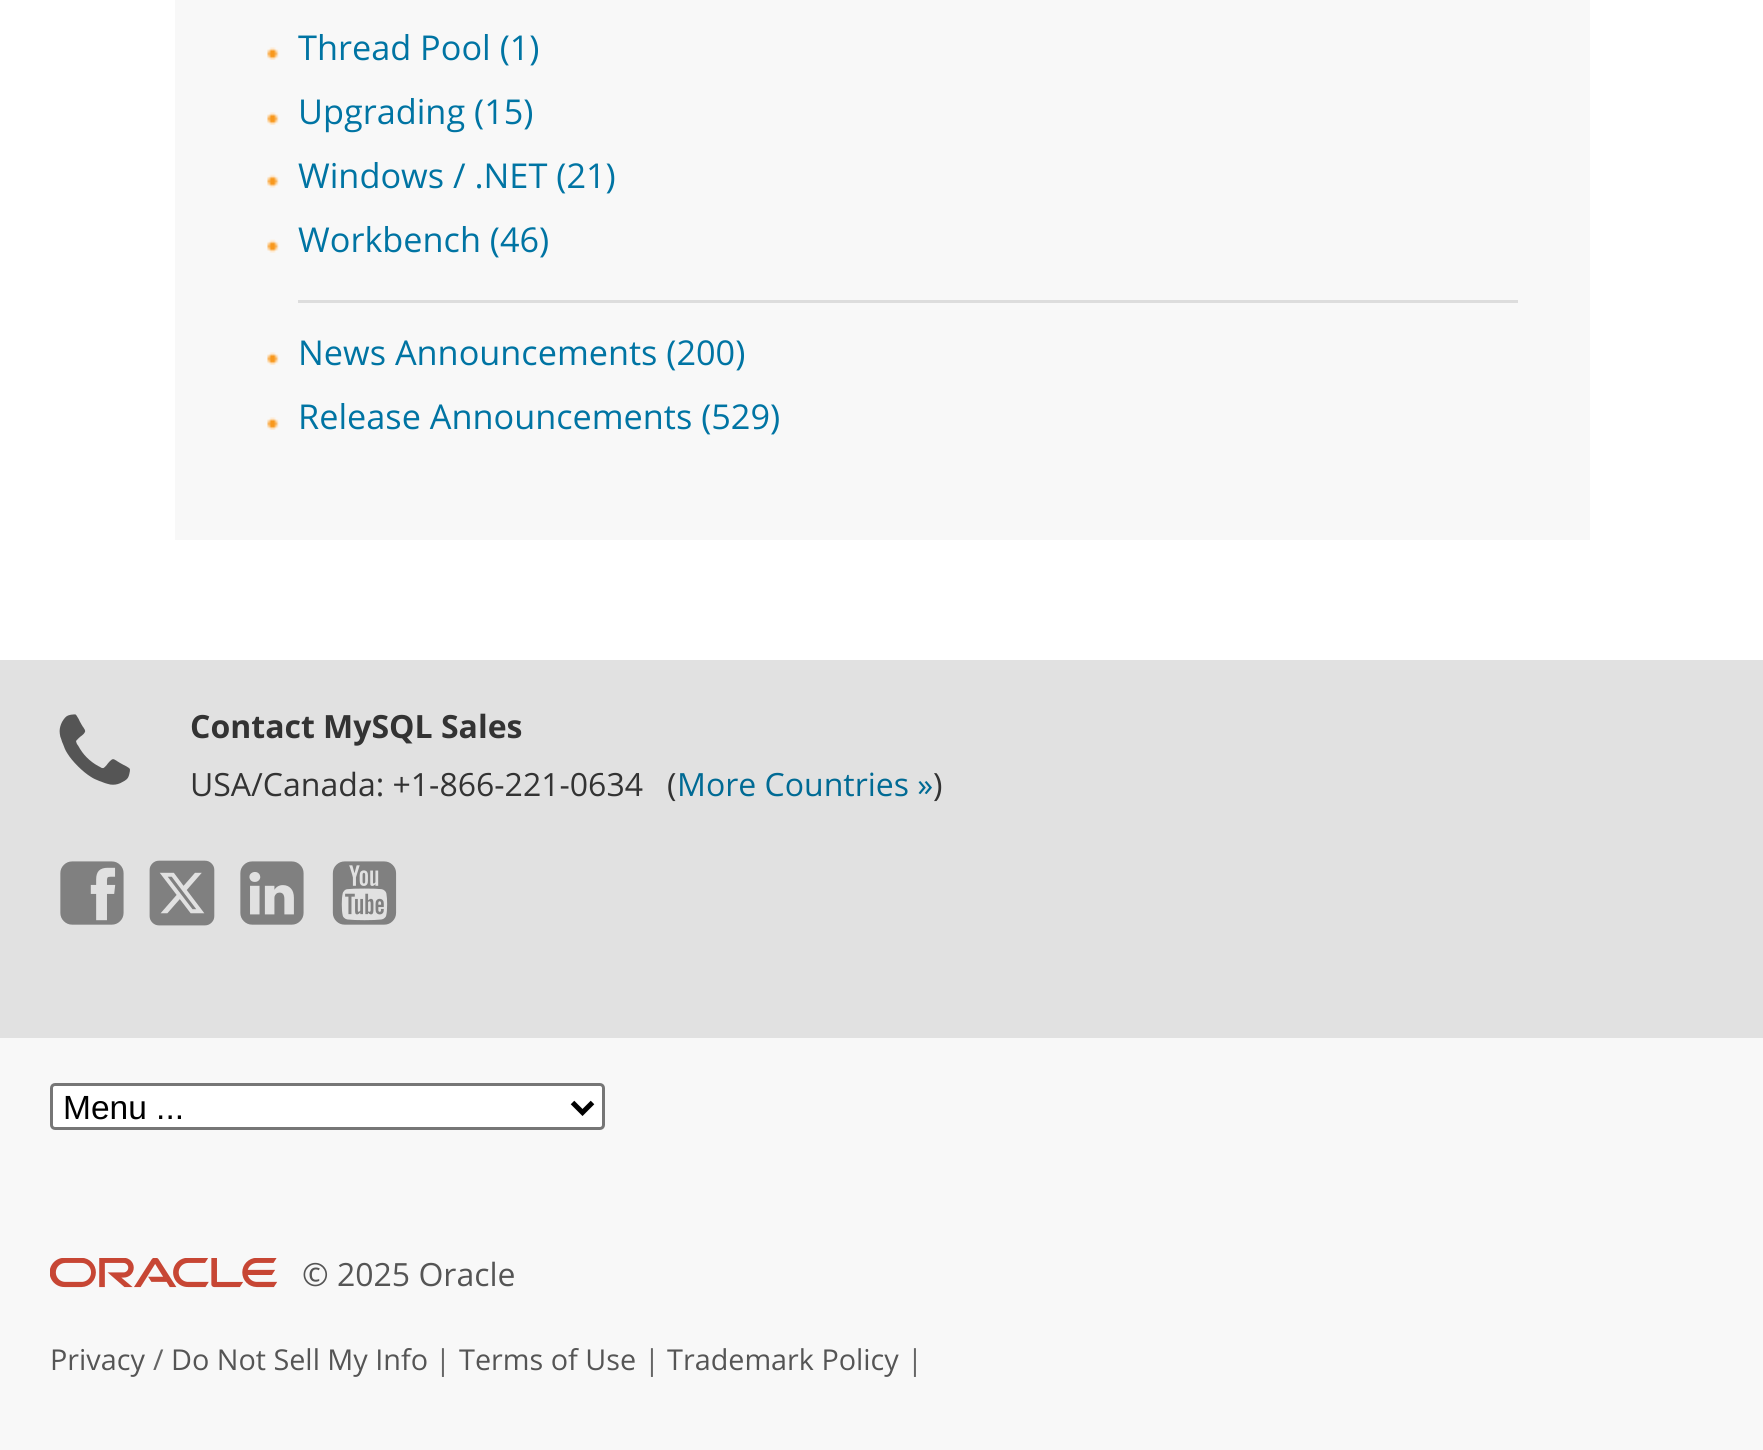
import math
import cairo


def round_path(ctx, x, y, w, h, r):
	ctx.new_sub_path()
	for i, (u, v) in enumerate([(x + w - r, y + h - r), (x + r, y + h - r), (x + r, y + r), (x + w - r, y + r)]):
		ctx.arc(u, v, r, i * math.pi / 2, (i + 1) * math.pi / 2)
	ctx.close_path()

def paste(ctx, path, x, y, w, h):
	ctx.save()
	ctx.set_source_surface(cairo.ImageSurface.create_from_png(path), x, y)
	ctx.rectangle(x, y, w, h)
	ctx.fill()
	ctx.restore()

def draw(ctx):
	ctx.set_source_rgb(1, 1, 1)
	ctx.paint()
	ctx.set_source_rgb(0.969, 0.969, 0.969)
	ctx.rectangle(175, 0, 1415, 540)
	ctx.fill()
	paste(ctx, 'media/1.png', 267, 47, 12, 13)
	ctx.select_font_face('Open Sans')
	ctx.set_font_size(34.25)
	ctx.set_source_rgb(0, 0.455, 0.639)
	ctx.move_to(298, 60)
	ctx.show_text('Thread Pool (1)')
	paste(ctx, 'media/1.png', 267, 112, 12, 13)
	ctx.move_to(298, 124)
	ctx.show_text('Upgrading (15)')
	paste(ctx, 'media/2.png', 267, 174, 12, 14)
	ctx.move_to(298, 188)
	ctx.show_text('Windows / .NET (21)')
	paste(ctx, 'media/3.png', 267, 239, 12, 14)
	ctx.move_to(298, 252)
	ctx.show_text('Workbench (46)')
	ctx.set_source_rgb(0.867, 0.867, 0.867)
	ctx.rectangle(298, 300, 1220, 3)
	ctx.fill()
	paste(ctx, 'media/1.png', 267, 352, 12, 13)
	ctx.set_source_rgb(0, 0.455, 0.639)
	ctx.move_to(298, 365)
	ctx.show_text('News Announcements (200)')
	paste(ctx, 'media/1.png', 267, 417, 12, 13)
	ctx.move_to(298, 429)
	ctx.show_text('Release Announcements (529)')
	ctx.set_source_rgb(0.882, 0.882, 0.882)
	ctx.rectangle(0, 660, 1763, 378)
	ctx.fill()
	paste(ctx, 'media/4.png', 59, 714, 71, 71)
	ctx.select_font_face('Open Sans', cairo.FONT_SLANT_NORMAL, cairo.FONT_WEIGHT_BOLD)
	ctx.set_font_size(32)
	ctx.set_source_rgb(0.2, 0.2, 0.2)
	ctx.move_to(190, 738)
	ctx.show_text('Contact MySQL Sales')
	ctx.select_font_face('Open Sans')
	ctx.move_to(190, 796)
	ctx.show_text('USA/Canada: +1-866-221-0634')
	ctx.move_to(667, 796)
	ctx.show_text('(')
	ctx.set_source_rgb(0, 0.416, 0.58)
	ctx.move_to(677, 796)
	ctx.show_text('More Countries »')
	ctx.set_source_rgb(0.2, 0.2, 0.2)
	ctx.move_to(933, 796)
	ctx.show_text(')')
	paste(ctx, 'media/5.png', 60, 861, 64, 64)
	paste(ctx, 'media/6.png', 149, 860, 66, 66)
	paste(ctx, 'media/7.png', 240, 861, 64, 64)
	paste(ctx, 'media/8.png', 332, 861, 65, 64)
	ctx.set_source_rgb(0.969, 0.969, 0.969)
	ctx.rectangle(0, 1038, 1763, 412)
	ctx.fill()
	ctx.set_source_rgb(1, 1, 1)
	round_path(ctx, 51.5, 1084.5, 552, 44, 3.5)
	ctx.fill_preserve()
	ctx.set_source_rgb(0.463, 0.463, 0.463)
	ctx.set_line_width(3)
	ctx.stroke()
	ctx.new_path()
	ctx.move_to(572.5, 1102.5)
	ctx.line_to(582.5, 1112.5)
	ctx.line_to(592.5, 1102.5)
	ctx.set_source_rgb(0, 0, 0)
	ctx.set_line_width(5)
	ctx.stroke()
	ctx.select_font_face('Liberation Sans')
	ctx.set_font_size(33.5)
	ctx.move_to(63, 1119)
	ctx.show_text('Menu ...')
	paste(ctx, 'media/9.png', 50, 1258, 228, 30)
	ctx.select_font_face('Open Sans')
	ctx.set_font_size(32)
	ctx.set_source_rgb(0.333, 0.333, 0.333)
	ctx.move_to(302, 1286)
	ctx.show_text('© 2025 Oracle')
	ctx.set_font_size(28.75)
	ctx.move_to(50, 1370)
	ctx.show_text('Privacy')
	ctx.set_source_rgb(0.4, 0.4, 0.4)
	ctx.move_to(153, 1370)
	ctx.show_text('/')
	ctx.set_source_rgb(0.333, 0.333, 0.333)
	ctx.move_to(171, 1370)
	ctx.show_text('Do Not Sell My Info')
	ctx.set_source_rgb(0.4, 0.4, 0.4)
	ctx.move_to(435, 1370)
	ctx.show_text('|')
	ctx.set_source_rgb(0.333, 0.333, 0.333)
	ctx.move_to(459, 1370)
	ctx.show_text('Terms of Use')
	ctx.set_source_rgb(0.4, 0.4, 0.4)
	ctx.move_to(644, 1370)
	ctx.show_text('|')
	ctx.set_source_rgb(0.333, 0.333, 0.333)
	ctx.move_to(667, 1370)
	ctx.show_text('Trademark Policy')
	ctx.set_source_rgb(0.4, 0.4, 0.4)
	ctx.move_to(907, 1370)
	ctx.show_text('|')


surface = cairo.ImageSurface(cairo.FORMAT_RGB24, 1763, 1450)
ctx = cairo.Context(surface)
options = cairo.FontOptions()
options.set_hint_metrics(cairo.HINT_METRICS_OFF)
options.set_hint_style(cairo.HINT_STYLE_NONE)
ctx.set_font_options(options)
ctx.set_miter_limit(4)
draw(ctx)
surface.write_to_png('image.png')
